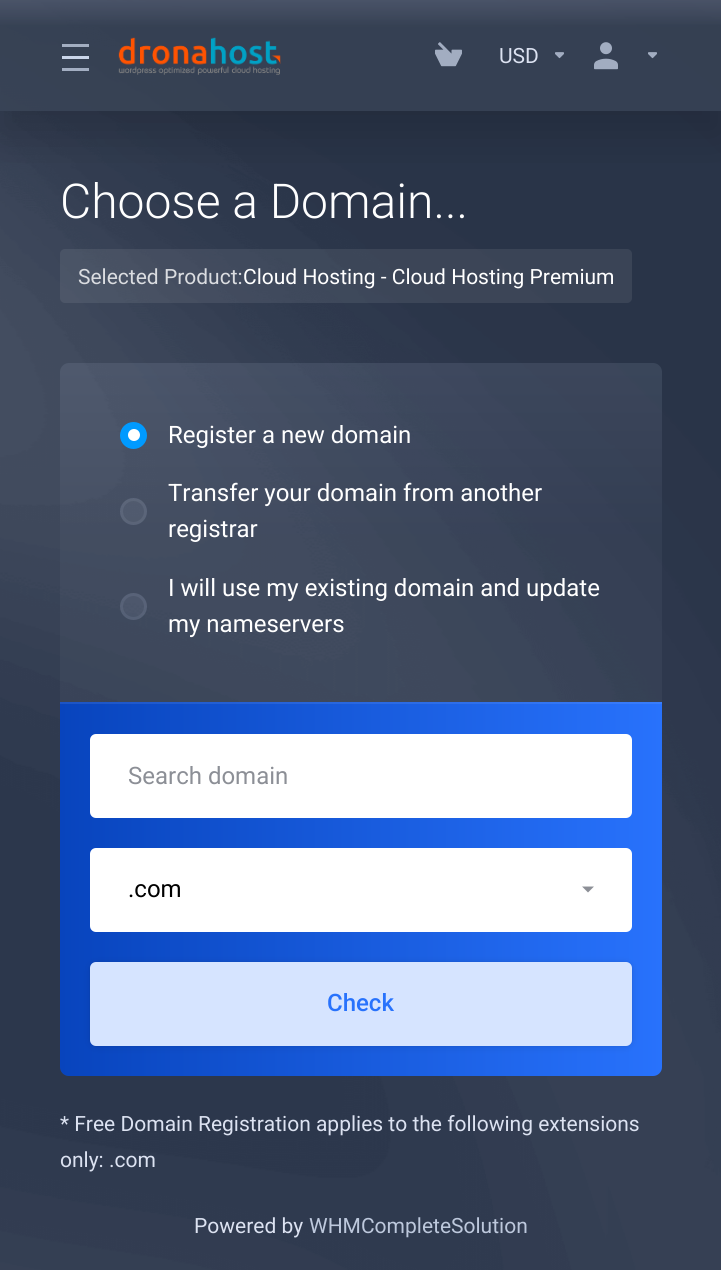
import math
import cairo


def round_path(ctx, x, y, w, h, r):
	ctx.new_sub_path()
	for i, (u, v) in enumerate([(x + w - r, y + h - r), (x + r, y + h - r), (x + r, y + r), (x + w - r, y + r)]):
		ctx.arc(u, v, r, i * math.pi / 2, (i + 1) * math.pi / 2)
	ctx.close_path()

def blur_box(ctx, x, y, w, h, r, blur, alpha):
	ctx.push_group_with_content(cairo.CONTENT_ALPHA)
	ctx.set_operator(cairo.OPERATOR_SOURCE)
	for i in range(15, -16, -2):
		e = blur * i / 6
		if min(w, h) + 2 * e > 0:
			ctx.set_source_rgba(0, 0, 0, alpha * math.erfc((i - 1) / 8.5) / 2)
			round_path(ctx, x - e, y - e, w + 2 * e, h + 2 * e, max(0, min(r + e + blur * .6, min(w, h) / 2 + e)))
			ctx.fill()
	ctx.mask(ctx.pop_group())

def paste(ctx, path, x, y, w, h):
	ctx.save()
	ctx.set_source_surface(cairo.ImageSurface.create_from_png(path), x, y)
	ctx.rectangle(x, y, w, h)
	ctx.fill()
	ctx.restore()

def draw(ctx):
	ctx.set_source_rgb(0.173, 0.216, 0.298)
	ctx.paint()
	paste(ctx, 'media/1.png', 0, 0, 721, 1270)
	ctx.save()
	ctx.rectangle(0, 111, 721, 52)
	ctx.clip()
	ctx.set_source_rgb(0, 0, 0)
	blur_box(ctx, 0, 24, 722, 111, 0, 24, 0.16)
	ctx.restore()
	gradient = cairo.LinearGradient(361, 0, 361, 111)
	gradient.add_color_stop_rgba(0, 0.357, 0.392, 0.475, 0.64)
	gradient.add_color_stop_rgba(0.24, 0.227, 0.271, 0.341, 0.72)
	gradient.add_color_stop_rgba(1, 0.227, 0.271, 0.341, 0.72)
	ctx.set_source(gradient)
	ctx.rectangle(0, 0, 721, 111)
	ctx.fill()
	ctx.set_source_rgb(0.639, 0.682, 0.757)
	ctx.rectangle(62, 44, 27, 3)
	ctx.fill()
	ctx.set_source_rgb(0.792, 0.835, 0.914)
	ctx.rectangle(62, 56, 27, 3)
	ctx.fill()
	ctx.set_source_rgb(0.639, 0.682, 0.761)
	ctx.rectangle(62, 68, 27, 3)
	ctx.fill()
	paste(ctx, 'media/2.png', 118, 37, 163, 38)
	paste(ctx, 'media/3.png', 435, 42, 27, 25)
	ctx.select_font_face('Roboto')
	ctx.set_font_size(21)
	ctx.set_source_rgb(0.863, 0.886, 0.945)
	ctx.move_to(499, 63)
	ctx.show_text('USD')
	paste(ctx, 'media/4.png', 555, 52, 9, 7)
	paste(ctx, 'media/5.png', 594, 42, 24, 28)
	paste(ctx, 'media/6.png', 648, 52, 9, 7)
	ctx.select_font_face('Roboto Light')
	ctx.set_font_size(48)
	ctx.set_source_rgb(1, 1, 1)
	ctx.move_to(60, 218)
	ctx.show_text('Choose a Domain...')
	ctx.set_source_rgba(1, 1, 1, 0.08)
	round_path(ctx, 60, 249, 572, 54, 5)
	ctx.fill()
	ctx.select_font_face('Roboto')
	ctx.set_font_size(21)
	ctx.set_source_rgb(0.855, 0.863, 0.878)
	ctx.move_to(78, 284)
	ctx.show_text('Selected Product:')
	ctx.set_source_rgb(1, 1, 1)
	ctx.move_to(243, 284)
	ctx.show_text('Cloud Hosting - Cloud Hosting Premium')
	gradient = cairo.LinearGradient(361, 363, 361, 1076)
	gradient.add_color_stop_rgba(0, 0.592, 0.643, 0.745, 0.16)
	gradient.add_color_stop_rgba(0.24, 0.365, 0.412, 0.502, 0.16)
	gradient.add_color_stop_rgba(1, 0.365, 0.412, 0.502, 0.16)
	ctx.set_source(gradient)
	round_path(ctx, 60, 363, 602, 713, 9)
	ctx.fill()
	ctx.set_source_rgb(0, 0.604, 1)
	ctx.arc(133.5, 435.5, 12, 0, 2 * math.pi)
	ctx.fill_preserve()
	ctx.set_line_width(3)
	ctx.stroke()
	ctx.set_source_rgb(1, 1, 1)
	ctx.arc(134, 435, 6, 0, 2 * math.pi)
	ctx.fill()
	ctx.set_font_size(24)
	ctx.move_to(168, 443)
	ctx.show_text('Register a new domain')
	ctx.set_source_rgba(0.878, 0.922, 1, 0.08)
	ctx.new_path()
	ctx.arc(133.5, 511.5, 13.5, 0, 2 * math.pi)
	ctx.fill()
	ctx.arc(133.5, 511.5, 12, 0, 2 * math.pi)
	ctx.stroke()
	ctx.set_source_rgb(1, 1, 1)
	ctx.move_to(168, 501)
	ctx.show_text('Transfer your domain from another')
	ctx.move_to(168, 537)
	ctx.show_text('registrar')
	ctx.set_source_rgba(0.878, 0.922, 1, 0.08)
	ctx.new_path()
	ctx.arc(133.5, 606.5, 13.5, 0, 2 * math.pi)
	ctx.fill()
	ctx.arc(133.5, 606.5, 12, 0, 2 * math.pi)
	ctx.stroke()
	ctx.set_source_rgb(1, 1, 1)
	ctx.move_to(168, 596)
	ctx.show_text('I will use my existing domain and update')
	ctx.move_to(168, 632)
	ctx.show_text('my nameservers')
	gradient = cairo.LinearGradient(60, 890, 662, 890)
	gradient.add_color_stop_rgba(0, 0.031, 0.267, 0.741, 1)
	gradient.add_color_stop_rgba(1, 0.157, 0.447, 0.988, 1)
	ctx.set_source(gradient)
	ctx.new_path()
	ctx.move_to(60, 702)
	ctx.line_to(662, 702)
	ctx.line_to(662, 1067)
	ctx.curve_to(662, 1072, 658, 1076, 653, 1076)
	ctx.line_to(69, 1076)
	ctx.curve_to(64, 1076, 60, 1072, 60, 1067)
	ctx.close_path()
	ctx.fill()
	ctx.set_source_rgba(0.698, 0.8, 1, 0.12)
	ctx.rectangle(60, 702, 602, 2)
	ctx.fill()
	ctx.set_source_rgb(1, 1, 1)
	round_path(ctx, 91, 735, 540, 82, 5)
	ctx.fill_preserve()
	ctx.set_line_width(2)
	ctx.stroke()
	ctx.set_source_rgb(0.549, 0.561, 0.588)
	ctx.move_to(128, 784)
	ctx.show_text('Search domain')
	ctx.set_source_rgb(1, 1, 1)
	round_path(ctx, 91, 849, 540, 82, 5)
	ctx.fill_preserve()
	ctx.stroke()
	ctx.set_source_rgb(0, 0, 0)
	ctx.move_to(128, 897)
	ctx.show_text('.com')
	ctx.set_source_rgb(0.549, 0.561, 0.588)
	ctx.new_path()
	ctx.move_to(582, 886.5)
	ctx.line_to(594, 886.5)
	ctx.line_to(588, 892.5)
	ctx.close_path()
	ctx.fill()
	ctx.set_source_rgb(0, 0, 0)
	blur_box(ctx, 90, 963, 542, 84, 6, 4.5, 0.08)
	blur_box(ctx, 90, 962, 542, 84, 6, 1, 0.1)
	ctx.set_source_rgb(0.839, 0.894, 1)
	round_path(ctx, 91, 963, 540, 82, 5)
	ctx.fill_preserve()
	ctx.stroke()
	ctx.select_font_face('Roboto Medium')
	ctx.set_source_rgb(0.157, 0.447, 0.988)
	ctx.move_to(327, 1011)
	ctx.show_text('Check')
	ctx.select_font_face('Roboto')
	ctx.set_font_size(21)
	ctx.set_source_rgb(0.863, 0.886, 0.945)
	for x, y, s in [
		(60, 1131, '* Free Domain Registration applies to the following extensions'),
		(60, 1167, 'only: .com'),
		(194, 1233, 'Powered by'),
	]:
		ctx.move_to(x, y)
		ctx.show_text(s)
	ctx.set_source_rgb(0.741, 0.784, 0.863)
	ctx.move_to(309, 1233)
	ctx.show_text('WHMCompleteSolution')


surface = cairo.ImageSurface(cairo.FORMAT_RGB24, 721, 1270)
ctx = cairo.Context(surface)
options = cairo.FontOptions()
options.set_hint_metrics(cairo.HINT_METRICS_OFF)
options.set_hint_style(cairo.HINT_STYLE_NONE)
ctx.set_font_options(options)
ctx.set_miter_limit(4)
draw(ctx)
surface.write_to_png('image.png')
